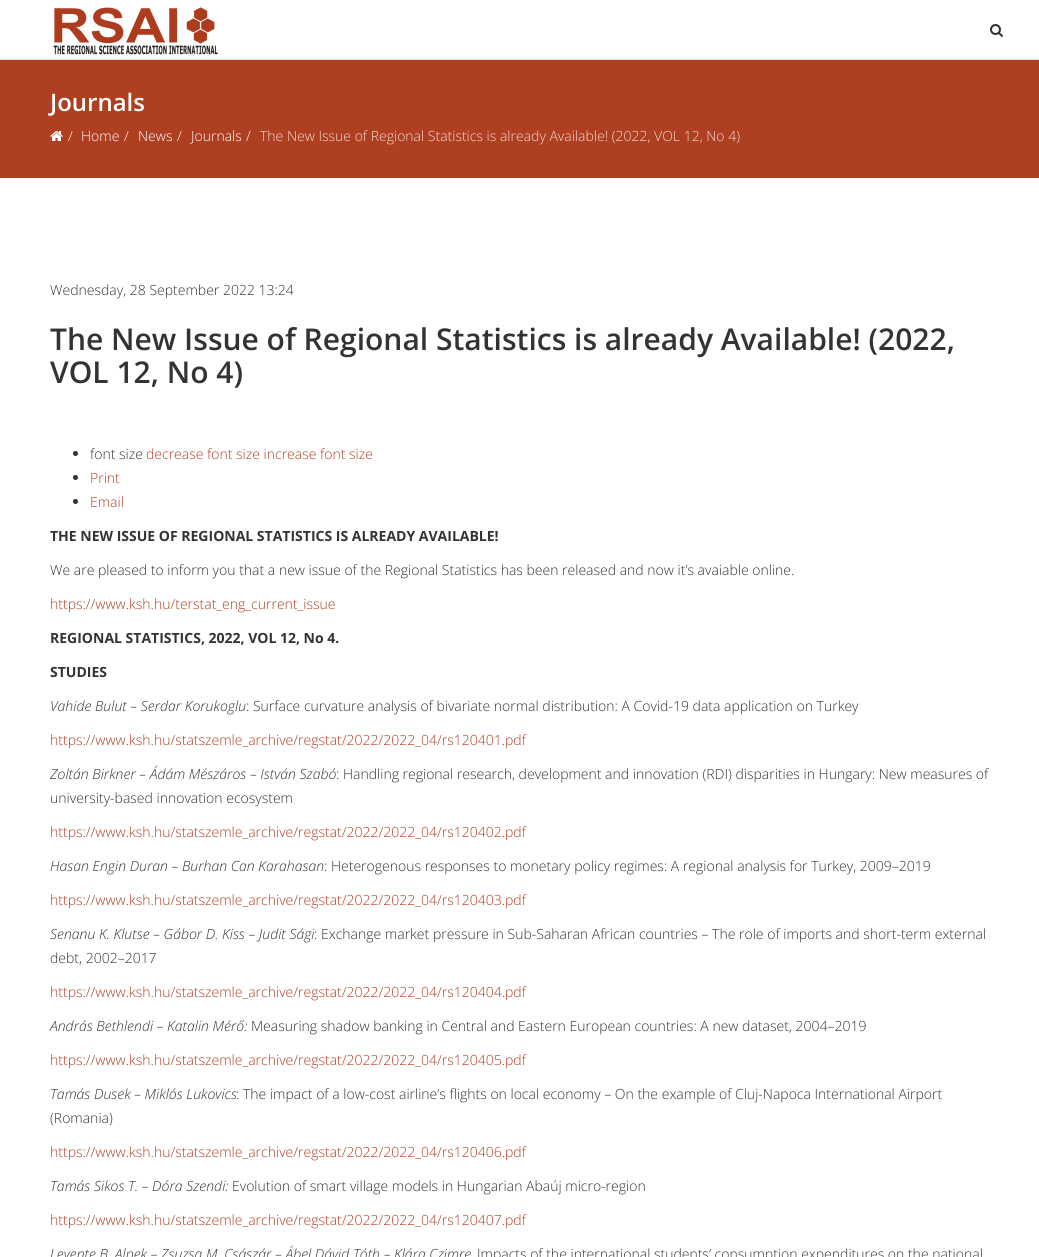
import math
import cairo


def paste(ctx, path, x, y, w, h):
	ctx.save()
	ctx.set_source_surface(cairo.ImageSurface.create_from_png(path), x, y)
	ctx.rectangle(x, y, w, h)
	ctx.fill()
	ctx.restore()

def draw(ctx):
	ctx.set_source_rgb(1, 1, 1)
	ctx.paint()
	ctx.set_source_rgb(0.882, 0.882, 0.882)
	ctx.rectangle(0, 59, 1039, 1)
	ctx.fill()
	paste(ctx, 'media/1.png', 53, 7, 165, 48)
	paste(ctx, 'media/2.png', 990, 24, 13, 13)
	ctx.set_source_rgb(0.686, 0.247, 0.129)
	ctx.rectangle(0, 60, 1039, 118)
	ctx.fill()
	ctx.select_font_face('Open Sans SemiBold')
	ctx.set_font_size(24)
	ctx.set_source_rgb(1, 1, 1)
	ctx.move_to(50, 111)
	ctx.show_text('Journals')
	paste(ctx, 'media/3.png', 50, 131, 13, 10)
	ctx.select_font_face('Open Sans Light')
	ctx.set_font_size(14)
	for x, y, s in [
		(68, 141, '/'),
		(81, 141, 'Home'),
		(124, 141, '/'),
		(138, 141, 'News'),
		(177, 141, '/'),
		(191, 141, 'Journals'),
		(246, 141, '/'),
	]:
		ctx.move_to(x, y)
		ctx.show_text(s)
	ctx.set_source_rgb(0.937, 0.851, 0.827)
	ctx.move_to(260, 141)
	ctx.show_text('The New Issue of Regional Statistics is already Available! (2022, VOL 12, No 4)')
	ctx.set_source_rgb(0.2, 0.2, 0.2)
	ctx.move_to(50, 295)
	ctx.show_text('Wednesday, 28 September 2022 13:24')
	ctx.select_font_face('Open Sans SemiBold')
	ctx.set_font_size(30)
	ctx.move_to(50, 350)
	ctx.show_text('The New Issue of Regional Statistics is already Available! (2022,')
	ctx.move_to(50, 383)
	ctx.show_text('VOL 12, No 4)')
	ctx.new_path()
	ctx.arc(75.5, 453.5, 2.5, 0, 2 * math.pi)
	ctx.fill()
	ctx.select_font_face('Open Sans Light')
	ctx.set_font_size(14)
	ctx.move_to(90, 459)
	ctx.show_text('font size')
	ctx.set_source_rgb(0.686, 0.247, 0.129)
	ctx.move_to(146, 459)
	ctx.show_text('decrease font size increase font size')
	ctx.set_source_rgb(0.2, 0.2, 0.2)
	ctx.new_path()
	ctx.arc(75.5, 477.5, 2.5, 0, 2 * math.pi)
	ctx.fill()
	ctx.set_source_rgb(0.686, 0.247, 0.129)
	ctx.move_to(90, 483)
	ctx.show_text('Print')
	ctx.set_source_rgb(0.2, 0.2, 0.2)
	ctx.new_path()
	ctx.arc(75.5, 501.5, 2.5, 0, 2 * math.pi)
	ctx.fill()
	ctx.set_source_rgb(0.686, 0.247, 0.129)
	ctx.move_to(90, 507)
	ctx.show_text('Email')
	ctx.select_font_face('Open Sans', cairo.FONT_SLANT_NORMAL, cairo.FONT_WEIGHT_BOLD)
	ctx.set_source_rgb(0.2, 0.2, 0.2)
	ctx.move_to(50, 541)
	ctx.show_text('THE NEW ISSUE OF REGIONAL STATISTICS IS ALREADY AVAILABLE!')
	ctx.select_font_face('Open Sans Light')
	ctx.move_to(50, 575)
	ctx.show_text('We are pleased to inform you that a new issue of the Regional Statistics has been released and now it’s avaiable online.')
	ctx.set_source_rgb(0.686, 0.247, 0.129)
	ctx.move_to(50, 609)
	ctx.show_text('https://www.ksh.hu/terstat_eng_current_issue')
	ctx.select_font_face('Open Sans', cairo.FONT_SLANT_NORMAL, cairo.FONT_WEIGHT_BOLD)
	ctx.set_source_rgb(0.2, 0.2, 0.2)
	ctx.move_to(50, 643)
	ctx.show_text('REGIONAL STATISTICS, 2022, VOL 12, No 4.')
	ctx.move_to(50, 677)
	ctx.show_text('STUDIES')
	ctx.select_font_face('Open Sans Light', cairo.FONT_SLANT_ITALIC)
	ctx.move_to(50, 711)
	ctx.show_text('Vahide Bulut – Serdar Korukoglu')
	ctx.select_font_face('Open Sans Light')
	ctx.move_to(246, 711)
	ctx.show_text(': Surface curvature analysis of bivariate normal distribution: A Covid-19 data application on Turkey')
	ctx.set_source_rgb(0.686, 0.247, 0.129)
	ctx.move_to(50, 745)
	ctx.show_text('https://www.ksh.hu/statszemle_archive/regstat/2022/2022_04/rs120401.pdf')
	ctx.select_font_face('Open Sans Light', cairo.FONT_SLANT_ITALIC)
	ctx.set_source_rgb(0.2, 0.2, 0.2)
	ctx.move_to(50, 779)
	ctx.show_text('Zoltán Birkner – Ádám Mészáros – István Szabó')
	ctx.select_font_face('Open Sans Light')
	ctx.move_to(336, 779)
	ctx.show_text(': Handling regional research, development and innovation (RDI) disparities in Hungary: New measures of')
	ctx.move_to(50, 803)
	ctx.show_text('university-based innovation ecosystem')
	ctx.set_source_rgb(0.686, 0.247, 0.129)
	ctx.move_to(50, 837)
	ctx.show_text('https://www.ksh.hu/statszemle_archive/regstat/2022/2022_04/rs120402.pdf')
	ctx.select_font_face('Open Sans Light', cairo.FONT_SLANT_ITALIC)
	ctx.set_source_rgb(0.2, 0.2, 0.2)
	ctx.move_to(50, 871)
	ctx.show_text('Hasan Engin Duran – Burhan Can Karahasan')
	ctx.select_font_face('Open Sans Light')
	ctx.move_to(324, 871)
	ctx.show_text(': Heterogenous responses to monetary policy regimes: A regional analysis for Turkey, 2009–2019')
	ctx.set_source_rgb(0.686, 0.247, 0.129)
	ctx.move_to(50, 905)
	ctx.show_text('https://www.ksh.hu/statszemle_archive/regstat/2022/2022_04/rs120403.pdf')
	ctx.select_font_face('Open Sans Light', cairo.FONT_SLANT_ITALIC)
	ctx.set_source_rgb(0.2, 0.2, 0.2)
	ctx.move_to(50, 939)
	ctx.show_text('Senanu K. Klutse – Gábor D. Kiss – Judit Sági')
	ctx.select_font_face('Open Sans Light')
	ctx.move_to(314, 939)
	ctx.show_text(': Exchange market pressure in Sub-Saharan African countries – The role of imports and short-term external')
	ctx.move_to(50, 963)
	ctx.show_text('debt, 2002–2017')
	ctx.set_source_rgb(0.686, 0.247, 0.129)
	ctx.move_to(50, 997)
	ctx.show_text('https://www.ksh.hu/statszemle_archive/regstat/2022/2022_04/rs120404.pdf')
	ctx.select_font_face('Open Sans Light', cairo.FONT_SLANT_ITALIC)
	ctx.set_source_rgb(0.2, 0.2, 0.2)
	ctx.move_to(50, 1031)
	ctx.show_text('András Bethlendi – Katalin Mérő:')
	ctx.select_font_face('Open Sans Light')
	ctx.move_to(251, 1031)
	ctx.show_text('Measuring shadow banking in Central and Eastern European countries: A new dataset, 2004–2019')
	ctx.set_source_rgb(0.686, 0.247, 0.129)
	ctx.move_to(50, 1065)
	ctx.show_text('https://www.ksh.hu/statszemle_archive/regstat/2022/2022_04/rs120405.pdf')
	ctx.select_font_face('Open Sans Light', cairo.FONT_SLANT_ITALIC)
	ctx.set_source_rgb(0.2, 0.2, 0.2)
	ctx.move_to(50, 1099)
	ctx.show_text('Tamás Dusek – Miklós Lukovics')
	ctx.select_font_face('Open Sans Light')
	ctx.move_to(236, 1099)
	ctx.show_text(': The impact of a low-cost airline’s flights on local economy – On the example of Cluj-Napoca International Airport')
	ctx.move_to(50, 1123)
	ctx.show_text('(Romania)')
	ctx.set_source_rgb(0.686, 0.247, 0.129)
	ctx.move_to(50, 1157)
	ctx.show_text('https://www.ksh.hu/statszemle_archive/regstat/2022/2022_04/rs120406.pdf')
	ctx.select_font_face('Open Sans Light', cairo.FONT_SLANT_ITALIC)
	ctx.set_source_rgb(0.2, 0.2, 0.2)
	ctx.move_to(50, 1191)
	ctx.show_text('Tamás Sikos T. – Dóra Szendi:')
	ctx.select_font_face('Open Sans Light')
	ctx.move_to(232, 1191)
	ctx.show_text('Evolution of smart village models in Hungarian Abaúj micro-region')
	ctx.set_source_rgb(0.686, 0.247, 0.129)
	ctx.move_to(50, 1225)
	ctx.show_text('https://www.ksh.hu/statszemle_archive/regstat/2022/2022_04/rs120407.pdf')
	ctx.select_font_face('Open Sans Light', cairo.FONT_SLANT_ITALIC)
	ctx.set_source_rgb(0.2, 0.2, 0.2)
	ctx.move_to(50, 1259)
	ctx.show_text('Levente B. Alpek – Zsuzsa M. Császár – Ábel Dávid Tóth – Klára Czimre')
	ctx.select_font_face('Open Sans Light')
	ctx.move_to(477, 1259)
	ctx.show_text('Impacts of the international students’ consumption expenditures on the national')


surface = cairo.ImageSurface(cairo.FORMAT_RGB24, 1039, 1257)
ctx = cairo.Context(surface)
options = cairo.FontOptions()
options.set_hint_metrics(cairo.HINT_METRICS_OFF)
options.set_hint_style(cairo.HINT_STYLE_NONE)
ctx.set_font_options(options)
ctx.set_miter_limit(4)
draw(ctx)
surface.write_to_png('image.png')
